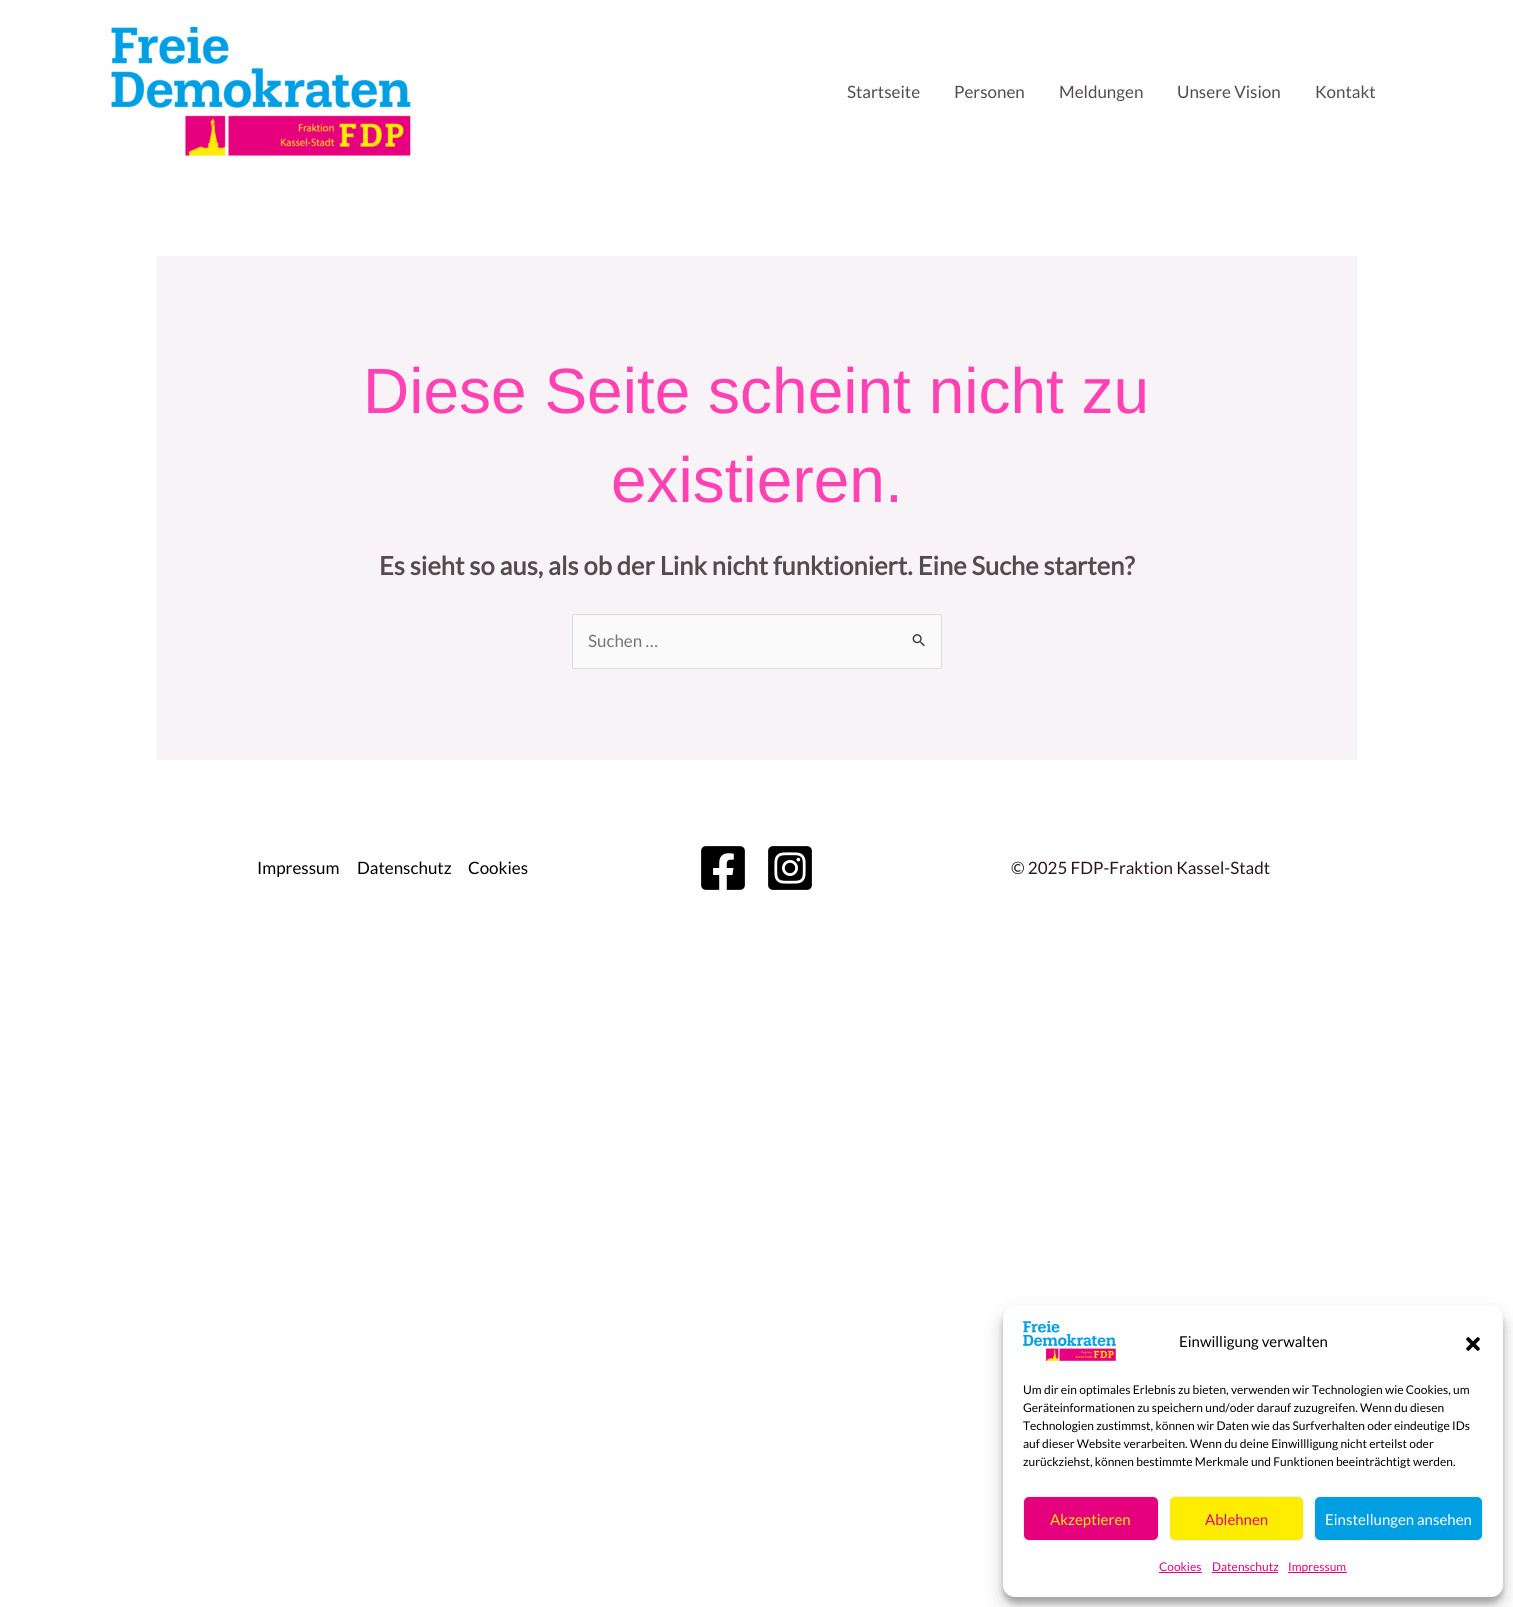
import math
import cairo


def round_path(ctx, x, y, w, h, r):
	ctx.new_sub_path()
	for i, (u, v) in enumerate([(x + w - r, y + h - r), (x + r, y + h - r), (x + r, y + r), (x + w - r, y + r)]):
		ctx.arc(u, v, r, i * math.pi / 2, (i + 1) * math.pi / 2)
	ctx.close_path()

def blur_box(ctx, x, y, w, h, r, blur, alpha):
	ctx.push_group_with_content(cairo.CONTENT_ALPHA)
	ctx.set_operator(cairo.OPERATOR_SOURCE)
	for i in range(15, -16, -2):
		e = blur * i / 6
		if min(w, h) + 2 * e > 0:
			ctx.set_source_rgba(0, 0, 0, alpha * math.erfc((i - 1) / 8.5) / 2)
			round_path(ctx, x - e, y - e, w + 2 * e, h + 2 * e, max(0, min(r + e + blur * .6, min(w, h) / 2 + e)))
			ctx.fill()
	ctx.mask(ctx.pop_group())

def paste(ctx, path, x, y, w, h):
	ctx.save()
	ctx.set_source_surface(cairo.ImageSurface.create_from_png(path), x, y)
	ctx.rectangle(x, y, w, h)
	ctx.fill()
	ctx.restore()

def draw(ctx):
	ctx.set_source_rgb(1, 1, 1)
	ctx.paint()
	paste(ctx, 'media/1.png', 111, 27, 300, 129)
	ctx.select_font_face('Lato')
	ctx.set_font_size(17)
	ctx.set_source_rgb(0.333, 0.294, 0.306)
	for x, y, s in [
		(847, 98, 'Startseite'),
		(954, 98, 'Personen'),
		(1059, 98, 'Meldungen'),
		(1177, 98, 'Unsere Vision'),
		(1315, 98, 'Kontakt'),
	]:
		ctx.move_to(x, y)
		ctx.show_text(s)
	ctx.set_source_rgb(0.965, 0.953, 0.961)
	ctx.rectangle(157, 256, 1200, 504)
	ctx.fill()
	ctx.select_font_face('Liberation Sans')
	ctx.set_font_size(64)
	ctx.set_source_rgb(1, 0.259, 0.702)
	ctx.move_to(363, 413)
	ctx.show_text('Diese Seite scheint nicht zu')
	ctx.move_to(611, 502)
	ctx.show_text('existieren.')
	ctx.select_font_face('Lato', cairo.FONT_SLANT_NORMAL, cairo.FONT_WEIGHT_BOLD)
	ctx.set_font_size(25.5)
	ctx.set_source_rgb(0.333, 0.294, 0.306)
	ctx.move_to(379, 575)
	ctx.show_text('Es sieht so aus, als ob der Link nicht funktioniert. Eine Suche starten?')
	ctx.set_source_rgb(0.98, 0.98, 0.98)
	round_path(ctx, 572.5, 614.5, 369, 54, 1.5)
	ctx.fill_preserve()
	ctx.set_source_rgb(0.867, 0.867, 0.867)
	ctx.set_line_width(1)
	ctx.stroke()
	ctx.select_font_face('Lato')
	ctx.set_font_size(17)
	ctx.set_source_rgb(0.459, 0.459, 0.459)
	ctx.move_to(588, 647)
	ctx.show_text('Suchen …')
	paste(ctx, 'media/2.png', 912, 634, 13, 13)
	ctx.set_source_rgb(0, 0, 0)
	for x, y, s in [
		(257, 874, 'Impressum'),
		(357, 874, 'Datenschutz'),
		(468, 874, 'Cookies'),
	]:
		ctx.move_to(x, y)
		ctx.show_text(s)
	paste(ctx, 'media/3.png', 701, 846, 44, 44)
	paste(ctx, 'media/4.png', 768, 846, 44, 44)
	ctx.set_source_rgb(0.169, 0.086, 0.106)
	ctx.move_to(1011, 874)
	ctx.show_text('© 2025 FDP-Fraktion Kassel-Stadt')
	ctx.set_source_rgb(0, 0, 0)
	blur_box(ctx, 1003, 1312, 500, 291, 12, 3, 0.23)
	blur_box(ctx, 1003, 1316, 500, 291, 12, 10, 0.19)
	ctx.set_source_rgb(1, 1, 1)
	round_path(ctx, 1003, 1306, 500, 291, 12)
	ctx.fill()
	paste(ctx, 'media/5.png', 1023, 1321, 93, 40)
	ctx.set_font_size(15)
	ctx.set_source_rgb(0, 0, 0)
	ctx.move_to(1179, 1347)
	ctx.show_text('Einwilligung verwalten')
	paste(ctx, 'media/6.png', 1466, 1337, 14, 14)
	ctx.set_font_size(12)
	for x, y, s in [
		(1023, 1394, 'Um dir ein optimales Erlebnis zu bieten, verwenden wir Technologien wie Cookies, um'),
		(1023, 1412, 'Geräteinformationen zu speichern und/oder darauf zuzugreifen. Wenn du diesen'),
		(1023, 1430, 'Technologien zustimmst, können wir Daten wie das Surfverhalten oder eindeutige IDs'),
		(1023, 1448, 'auf dieser Website verarbeiten. Wenn du deine Einwillligung nicht erteilst oder'),
		(1023, 1466, 'zurückziehst, können bestimmte Merkmale und Funktionen beeinträchtigt werden.'),
	]:
		ctx.move_to(x, y)
		ctx.show_text(s)
	ctx.set_source_rgb(0.898, 0, 0.49)
	round_path(ctx, 1023.5, 1496.5, 135, 44, 5.5)
	ctx.fill_preserve()
	ctx.set_source_rgb(0.949, 0.949, 0.949)
	ctx.stroke()
	ctx.set_font_size(15)
	ctx.set_source_rgb(1, 0.929, 0)
	ctx.move_to(1050, 1525)
	ctx.show_text('Akzeptieren')
	round_path(ctx, 1169.5, 1496.5, 134, 44, 5.5)
	ctx.fill_preserve()
	ctx.set_source_rgb(0.949, 0.949, 0.949)
	ctx.stroke()
	ctx.set_source_rgb(0.898, 0, 0.49)
	ctx.move_to(1205, 1525)
	ctx.show_text('Ablehnen')
	ctx.set_source_rgb(0, 0.62, 0.89)
	round_path(ctx, 1314.5, 1496.5, 168, 44, 5.5)
	ctx.fill_preserve()
	ctx.set_source_rgb(0.949, 0.949, 0.949)
	ctx.stroke()
	ctx.set_source_rgb(1, 1, 1)
	ctx.move_to(1325, 1525)
	ctx.show_text('Einstellungen ansehen')
	ctx.set_font_size(12)
	ctx.set_source_rgb(0.898, 0, 0.49)
	ctx.move_to(1159, 1571)
	ctx.show_text('Cookies')
	ctx.rectangle(1159, 1572, 43, 1)
	ctx.fill()
	ctx.move_to(1212, 1571)
	ctx.show_text('Datenschutz')
	ctx.rectangle(1212, 1572, 66, 1)
	ctx.fill()
	ctx.rectangle(1288, 1572, 59, 1)
	ctx.fill()
	ctx.move_to(1288, 1571)
	ctx.show_text('Impressum')


surface = cairo.ImageSurface(cairo.FORMAT_RGB24, 1513, 1607)
ctx = cairo.Context(surface)
options = cairo.FontOptions()
options.set_hint_metrics(cairo.HINT_METRICS_OFF)
options.set_hint_style(cairo.HINT_STYLE_NONE)
ctx.set_font_options(options)
ctx.set_miter_limit(4)
draw(ctx)
surface.write_to_png('image.png')
